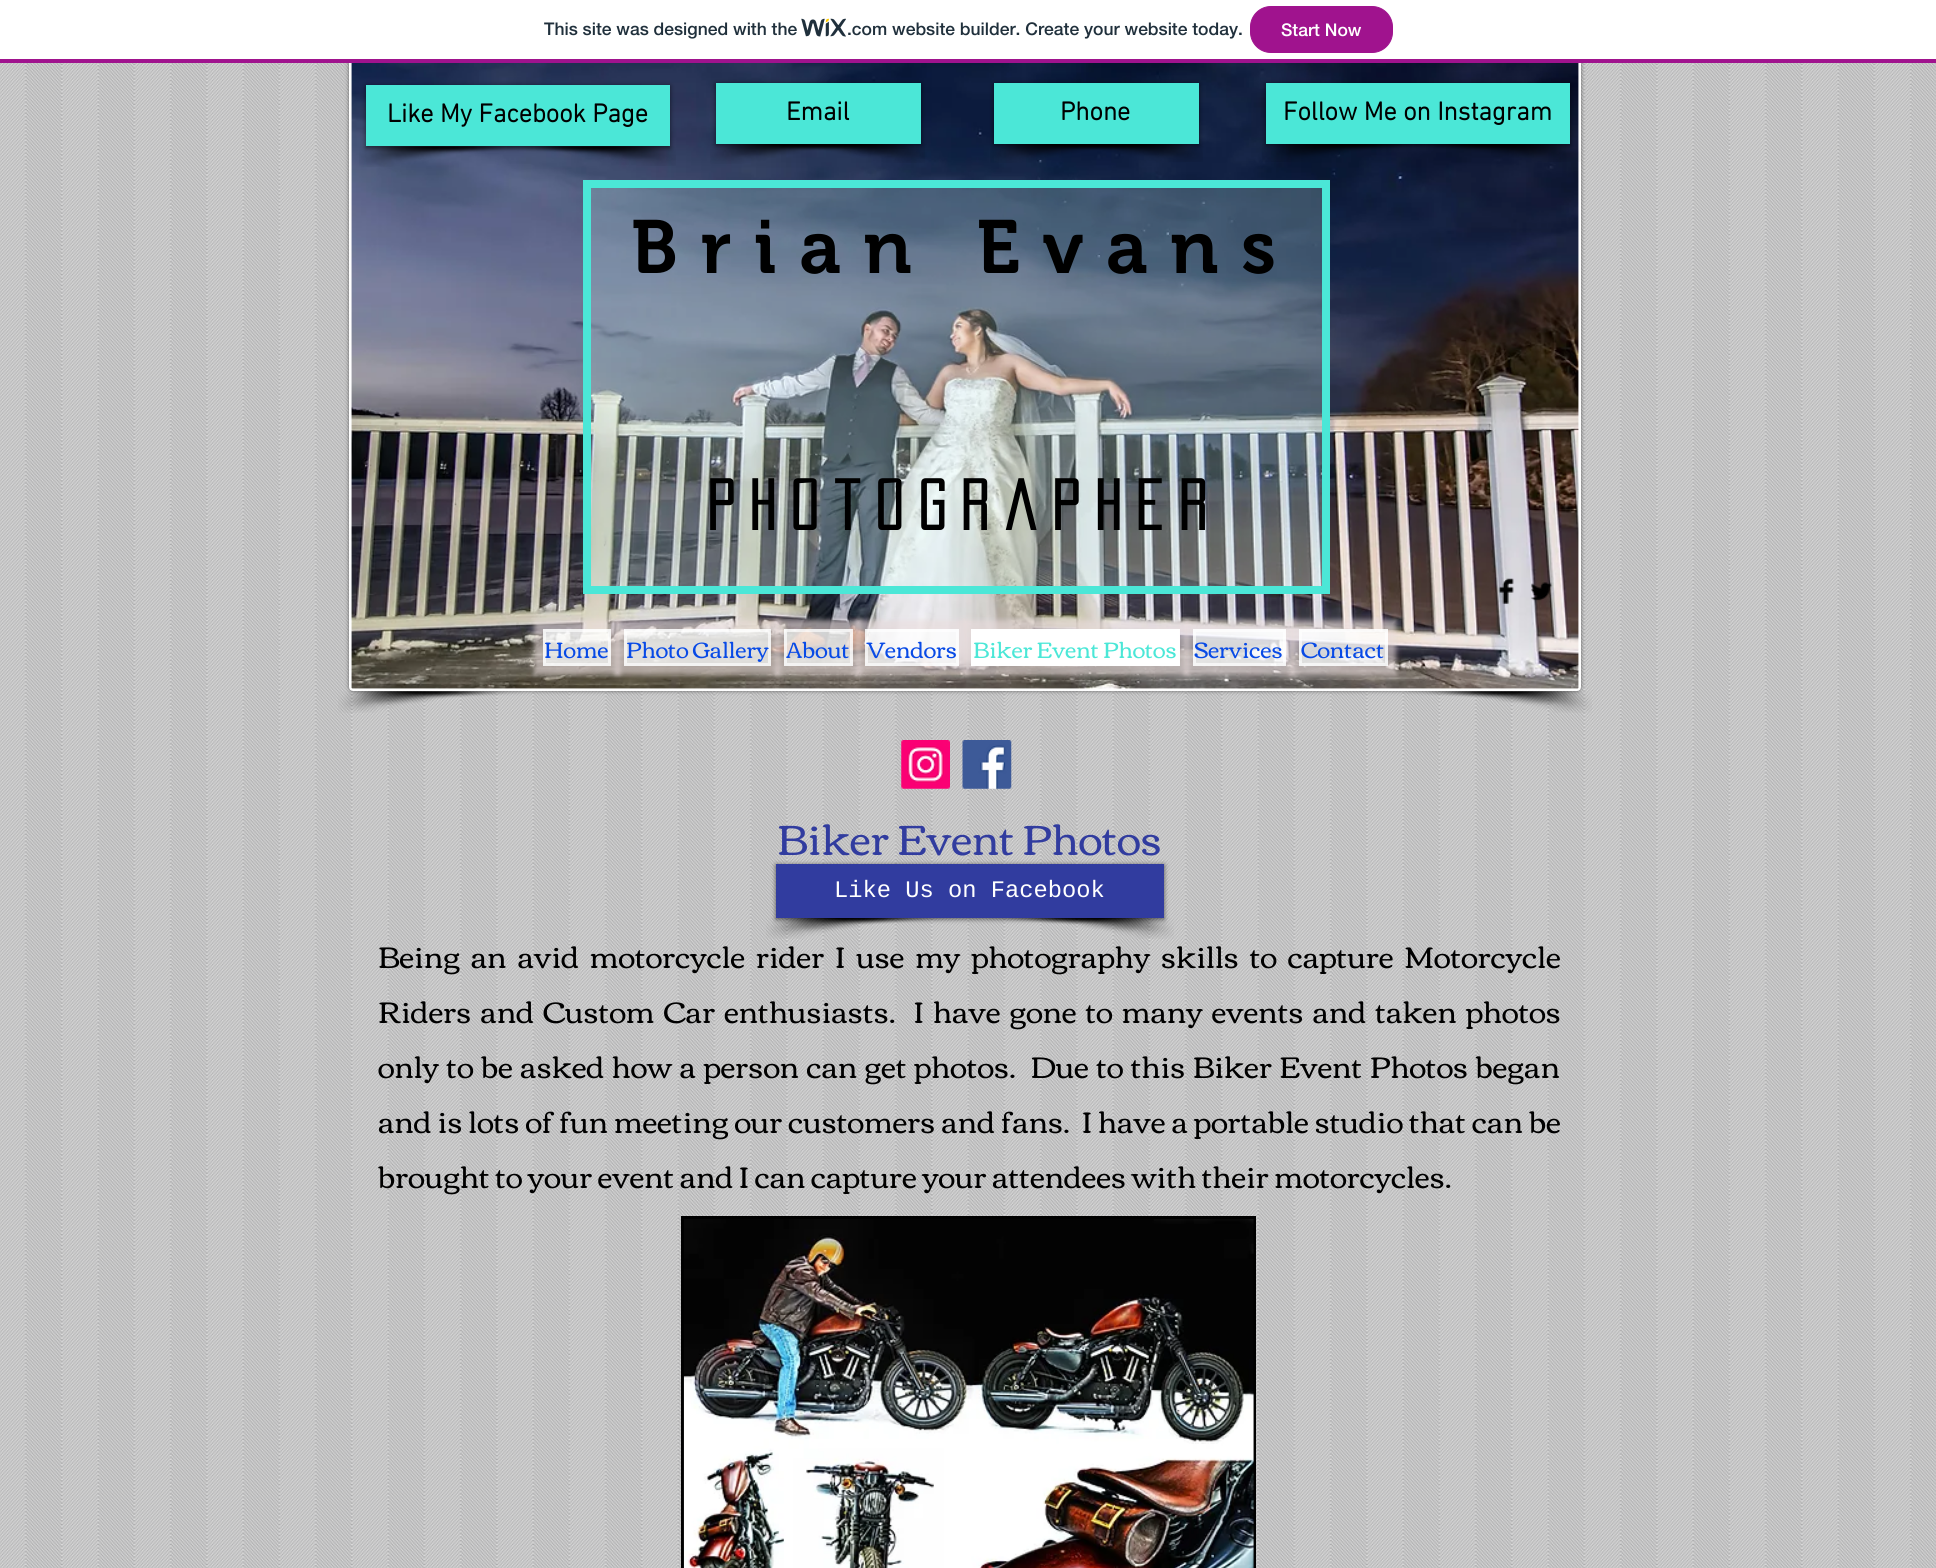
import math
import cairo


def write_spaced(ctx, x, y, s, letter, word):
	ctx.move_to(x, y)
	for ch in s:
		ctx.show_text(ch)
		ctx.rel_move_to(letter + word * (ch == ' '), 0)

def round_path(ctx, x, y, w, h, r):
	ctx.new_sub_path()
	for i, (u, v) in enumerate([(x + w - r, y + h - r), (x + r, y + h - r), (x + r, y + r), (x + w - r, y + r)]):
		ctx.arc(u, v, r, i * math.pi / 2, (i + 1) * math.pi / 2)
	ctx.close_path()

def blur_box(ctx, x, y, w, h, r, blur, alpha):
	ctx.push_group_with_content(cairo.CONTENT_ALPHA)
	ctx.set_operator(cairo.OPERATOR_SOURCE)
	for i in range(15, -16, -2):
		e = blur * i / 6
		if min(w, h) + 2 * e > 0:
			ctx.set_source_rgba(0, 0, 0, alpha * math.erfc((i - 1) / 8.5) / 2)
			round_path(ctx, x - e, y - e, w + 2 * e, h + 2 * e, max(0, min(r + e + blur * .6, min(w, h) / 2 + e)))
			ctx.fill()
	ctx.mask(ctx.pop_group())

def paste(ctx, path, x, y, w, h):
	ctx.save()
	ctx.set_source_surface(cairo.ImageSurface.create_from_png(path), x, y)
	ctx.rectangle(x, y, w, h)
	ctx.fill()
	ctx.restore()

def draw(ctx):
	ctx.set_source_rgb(0.886, 0.886, 0.886)
	ctx.paint()
	paste(ctx, 'media/2.png', 0, 63, 1936, 1505)
	ctx.set_source_rgb(0, 0, 0)
	blur_box(ctx, 349, -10, 1232, 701, 4, 2, 0.5)
	round_path(ctx, 350.5, -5.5, 1229, 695, 2.5)
	ctx.set_source_rgb(1, 1, 1)
	ctx.set_line_width(3)
	ctx.stroke()
	ctx.rectangle(0, 0, 1936, 59)
	ctx.fill()
	ctx.set_source_rgb(0.627, 0.075, 0.557)
	ctx.rectangle(0, 59, 1936, 4)
	ctx.fill()
	ctx.select_font_face('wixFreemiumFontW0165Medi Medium')
	ctx.set_font_size(17.5)
	ctx.set_source_rgb(0.125, 0.188, 0.235)
	ctx.move_to(544, 35)
	ctx.show_text('This site was designed with the')
	paste(ctx, 'media/1.png', 801, 18, 45, 19)
	ctx.move_to(847, 35)
	ctx.show_text('.com website builder. Create your website today.')
	ctx.set_source_rgb(0.627, 0.075, 0.557)
	round_path(ctx, 1250.5, 6.5, 142, 46, 20.5)
	ctx.fill_preserve()
	ctx.set_line_width(1)
	ctx.stroke()
	ctx.set_source_rgb(1, 1, 1)
	ctx.move_to(1281, 36)
	ctx.show_text('Start Now')
	paste(ctx, 'media/5.png', 351, 63, 1228, 626)
	paste(ctx, 'media/3.png', 359, 146, 174, 21)
	paste(ctx, 'media/4.png', 507, 146, 169, 20)
	ctx.set_source_rgb(0, 0, 0)
	blur_box(ctx, 366, 86, 304, 62, 0, 2.5, 0.6)
	ctx.set_source_rgb(0.294, 0.906, 0.843)
	ctx.rectangle(366, 85, 304, 61)
	ctx.fill()
	ctx.select_font_face('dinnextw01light', cairo.FONT_SLANT_NORMAL, cairo.FONT_WEIGHT_BOLD)
	ctx.set_font_size(26.25)
	ctx.set_source_rgb(0, 0, 0)
	ctx.move_to(387, 122)
	ctx.show_text('Like My Facebook Page')
	paste(ctx, 'media/6.png', 338, 691, 184, 22)
	paste(ctx, 'media/7.png', 1408, 691, 184, 22)
	paste(ctx, 'media/8.png', 710, 144, 169, 20)
	paste(ctx, 'media/9.png', 779, 144, 146, 19)
	ctx.set_source_rgb(0, 0, 0)
	blur_box(ctx, 716, 84, 205, 61, 0, 2.5, 0.6)
	ctx.set_source_rgb(0.294, 0.906, 0.843)
	ctx.rectangle(716, 83, 205, 61)
	ctx.fill()
	ctx.set_source_rgb(0, 0, 0)
	ctx.move_to(786, 120)
	ctx.show_text('Email')
	paste(ctx, 'media/10.png', 990, 144, 165, 19)
	paste(ctx, 'media/11.png', 1064, 144, 139, 18)
	ctx.set_source_rgb(0, 0, 0)
	blur_box(ctx, 994, 84, 205, 61, 0, 2.5, 0.6)
	ctx.set_source_rgb(0.294, 0.906, 0.843)
	ctx.rectangle(994, 83, 205, 61)
	ctx.fill()
	ctx.set_source_rgb(0, 0, 0)
	ctx.move_to(1060, 120)
	ctx.show_text('Phone')
	paste(ctx, 'media/12.png', 1262, 144, 163, 18)
	paste(ctx, 'media/13.png', 1414, 144, 167, 18)
	ctx.set_source_rgb(0, 0, 0)
	blur_box(ctx, 1266, 84, 304, 61, 0, 2.5, 0.6)
	ctx.set_source_rgb(0.294, 0.906, 0.843)
	ctx.rectangle(1266, 83, 304, 61)
	ctx.fill()
	ctx.set_source_rgb(0, 0, 0)
	ctx.move_to(1283, 120)
	ctx.show_text('Follow Me on Instagram')
	ctx.set_source_rgba(0.788, 0.973, 0.953, 0.24)
	ctx.rectangle(587, 184, 739, 406)
	ctx.fill_preserve()
	ctx.set_source_rgb(0.294, 0.906, 0.843)
	ctx.set_line_width(8)
	ctx.stroke()
	ctx.select_font_face('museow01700 SemiBold')
	ctx.set_font_size(75)
	ctx.set_source_rgb(0, 0, 0)
	write_spaced(ctx, 631, 273, 'Brian Evans', 22.5, 0)
	ctx.select_font_face('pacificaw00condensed', cairo.FONT_SLANT_NORMAL, cairo.FONT_WEIGHT_BOLD)
	ctx.set_font_size(62.5)
	write_spaced(ctx, 707, 530, 'Photographer', 15, 0)
	paste(ctx, 'media/14.png', 1498, 578, 16, 26)
	paste(ctx, 'media/15.png', 1531, 582, 22, 19)
	ctx.save()
	ctx.set_fill_rule(cairo.FILL_RULE_EVEN_ODD)
	ctx.new_path()
	ctx.move_to(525, 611)
	ctx.line_to(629, 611)
	ctx.line_to(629, 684)
	ctx.line_to(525, 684)
	ctx.close_path()
	ctx.move_to(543, 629)
	ctx.line_to(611, 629)
	ctx.line_to(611, 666)
	ctx.line_to(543, 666)
	ctx.close_path()
	ctx.clip()
	ctx.set_source_rgb(0.914, 0.863, 0.863)
	blur_box(ctx, 534, 620, 86, 55, 0, 2.5, 0.6)
	ctx.restore()
	ctx.set_source_rgba(1, 1, 1, 0.81)
	ctx.rectangle(543, 629, 68, 37)
	ctx.fill()
	ctx.rectangle(544.5, 630.5, 65, 34)
	ctx.set_source_rgba(1, 1, 1, 0.64)
	ctx.set_line_width(3)
	ctx.stroke()
	ctx.select_font_face('Corben')
	ctx.set_font_size(22.5)
	ctx.set_source_rgb(0.035, 0.29, 0.902)
	ctx.move_to(544, 658)
	ctx.show_text('Home')
	ctx.save()
	ctx.set_fill_rule(cairo.FILL_RULE_EVEN_ODD)
	ctx.new_path()
	ctx.move_to(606, 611)
	ctx.line_to(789, 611)
	ctx.line_to(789, 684)
	ctx.line_to(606, 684)
	ctx.close_path()
	ctx.move_to(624, 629)
	ctx.line_to(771, 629)
	ctx.line_to(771, 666)
	ctx.line_to(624, 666)
	ctx.close_path()
	ctx.clip()
	ctx.set_source_rgb(0.914, 0.863, 0.863)
	blur_box(ctx, 615, 620, 165, 55, 0, 2.5, 0.6)
	ctx.restore()
	ctx.set_source_rgba(1, 1, 1, 0.81)
	ctx.rectangle(624, 629, 147, 37)
	ctx.fill()
	ctx.rectangle(625.5, 630.5, 144, 34)
	ctx.set_source_rgba(1, 1, 1, 0.64)
	ctx.stroke()
	ctx.set_source_rgb(0.035, 0.29, 0.902)
	ctx.move_to(626, 658)
	ctx.show_text('Photo Gallery')
	ctx.save()
	ctx.set_fill_rule(cairo.FILL_RULE_EVEN_ODD)
	ctx.new_path()
	ctx.move_to(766, 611)
	ctx.line_to(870, 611)
	ctx.line_to(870, 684)
	ctx.line_to(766, 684)
	ctx.close_path()
	ctx.move_to(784, 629)
	ctx.line_to(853, 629)
	ctx.line_to(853, 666)
	ctx.line_to(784, 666)
	ctx.close_path()
	ctx.clip()
	ctx.set_source_rgb(0.914, 0.863, 0.863)
	blur_box(ctx, 775, 620, 86, 55, 0, 2.5, 0.6)
	ctx.restore()
	ctx.set_source_rgba(1, 1, 1, 0.81)
	ctx.rectangle(784, 629, 69, 37)
	ctx.fill()
	ctx.rectangle(785.5, 630.5, 66, 34)
	ctx.set_source_rgba(1, 1, 1, 0.64)
	ctx.stroke()
	ctx.set_source_rgb(0.035, 0.29, 0.902)
	ctx.move_to(786, 658)
	ctx.show_text('About')
	ctx.save()
	ctx.set_fill_rule(cairo.FILL_RULE_EVEN_ODD)
	ctx.new_path()
	ctx.move_to(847, 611)
	ctx.line_to(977, 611)
	ctx.line_to(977, 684)
	ctx.line_to(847, 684)
	ctx.close_path()
	ctx.move_to(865, 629)
	ctx.line_to(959, 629)
	ctx.line_to(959, 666)
	ctx.line_to(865, 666)
	ctx.close_path()
	ctx.clip()
	ctx.set_source_rgb(0.914, 0.863, 0.863)
	blur_box(ctx, 856, 620, 112, 55, 0, 2.5, 0.6)
	ctx.restore()
	ctx.set_source_rgba(1, 1, 1, 0.81)
	ctx.rectangle(865, 629, 94, 37)
	ctx.fill()
	ctx.rectangle(866.5, 630.5, 91, 34)
	ctx.set_source_rgba(1, 1, 1, 0.64)
	ctx.stroke()
	ctx.set_source_rgb(0.035, 0.29, 0.902)
	ctx.move_to(867, 658)
	ctx.show_text('Vendors')
	ctx.set_source_rgb(0.914, 0.863, 0.863)
	blur_box(ctx, 963, 620, 226, 55, 0, 2.5, 0.6)
	ctx.set_source_rgb(1, 1, 1)
	ctx.rectangle(971, 629, 209, 37)
	ctx.fill()
	ctx.set_source_rgb(0.294, 0.906, 0.843)
	ctx.move_to(973, 658)
	ctx.show_text('Biker Event Photos')
	ctx.save()
	ctx.set_fill_rule(cairo.FILL_RULE_EVEN_ODD)
	ctx.new_path()
	ctx.move_to(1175, 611)
	ctx.line_to(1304, 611)
	ctx.line_to(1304, 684)
	ctx.line_to(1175, 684)
	ctx.close_path()
	ctx.move_to(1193, 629)
	ctx.line_to(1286, 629)
	ctx.line_to(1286, 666)
	ctx.line_to(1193, 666)
	ctx.close_path()
	ctx.clip()
	ctx.set_source_rgb(0.914, 0.863, 0.863)
	blur_box(ctx, 1184, 620, 111, 55, 0, 2.5, 0.6)
	ctx.restore()
	ctx.set_source_rgba(1, 1, 1, 0.81)
	ctx.rectangle(1193, 629, 93, 37)
	ctx.fill()
	ctx.rectangle(1194.5, 630.5, 90, 34)
	ctx.set_source_rgba(1, 1, 1, 0.64)
	ctx.stroke()
	ctx.set_source_rgb(0.035, 0.29, 0.902)
	ctx.move_to(1194, 658)
	ctx.show_text('Services')
	ctx.save()
	ctx.set_fill_rule(cairo.FILL_RULE_EVEN_ODD)
	ctx.new_path()
	ctx.move_to(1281, 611)
	ctx.line_to(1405, 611)
	ctx.line_to(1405, 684)
	ctx.line_to(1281, 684)
	ctx.close_path()
	ctx.move_to(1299, 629)
	ctx.line_to(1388, 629)
	ctx.line_to(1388, 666)
	ctx.line_to(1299, 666)
	ctx.close_path()
	ctx.clip()
	ctx.set_source_rgb(0.914, 0.863, 0.863)
	blur_box(ctx, 1290, 620, 106, 55, 0, 2.5, 0.6)
	ctx.restore()
	ctx.set_source_rgba(1, 1, 1, 0.81)
	ctx.rectangle(1299, 629, 89, 37)
	ctx.fill()
	ctx.rectangle(1300.5, 630.5, 86, 34)
	ctx.set_source_rgba(1, 1, 1, 0.64)
	ctx.stroke()
	ctx.set_source_rgb(0.035, 0.29, 0.902)
	ctx.move_to(1301, 658)
	ctx.show_text('Contact')
	paste(ctx, 'media/16.png', 901, 740, 49, 49)
	paste(ctx, 'media/17.png', 962, 740, 50, 49)
	ctx.set_font_size(42.5)
	ctx.set_source_rgb(0.192, 0.235, 0.624)
	ctx.move_to(777, 855)
	ctx.show_text('Biker Event Photos')
	ctx.set_font_size(30)
	ctx.set_source_rgb(0, 0, 0)
	write_spaced(ctx, 378, 968, 'Being an avid motorcycle rider I use my photography skills to capture Motorcycle', 0, 5.4)
	write_spaced(ctx, 378, 1023, 'Riders and Custom Car enthusiasts.  I have gone to many events and taken photos', 0, 3.6)
	write_spaced(ctx, 378, 1078, 'only to be asked how a person can get photos.  Due to this Biker Event Photos began', 0, 1.9)
	write_spaced(ctx, 378, 1133, 'and is lots of fun meeting our customers and fans.  I have a portable studio that can be', 0, 0.5)
	ctx.move_to(378, 1188)
	ctx.show_text('brought to your event and I can capture your attendees with their motorcycles.')
	paste(ctx, 'media/18.png', 766, 918, 185, 21)
	paste(ctx, 'media/19.png', 989, 918, 185, 21)
	ctx.set_source_rgb(0, 0, 0)
	blur_box(ctx, 776, 865, 388, 54, 0, 2.5, 0.6)
	ctx.set_source_rgb(0.192, 0.235, 0.624)
	ctx.rectangle(776, 864, 388, 54)
	ctx.fill()
	ctx.select_font_face('Liberation Mono')
	ctx.set_font_size(23.75)
	ctx.set_source_rgb(1, 1, 1)
	ctx.move_to(834, 897)
	ctx.show_text('Like Us on Facebook')
	ctx.set_source_rgb(0, 0, 0)
	ctx.rectangle(681, 1216, 575, 352)
	ctx.fill()
	paste(ctx, 'media/20.png', 683, 1219, 571, 349)


surface = cairo.ImageSurface(cairo.FORMAT_RGB24, 1936, 1568)
ctx = cairo.Context(surface)
options = cairo.FontOptions()
options.set_hint_metrics(cairo.HINT_METRICS_OFF)
options.set_hint_style(cairo.HINT_STYLE_NONE)
ctx.set_font_options(options)
ctx.set_miter_limit(4)
draw(ctx)
surface.write_to_png('image.png')
